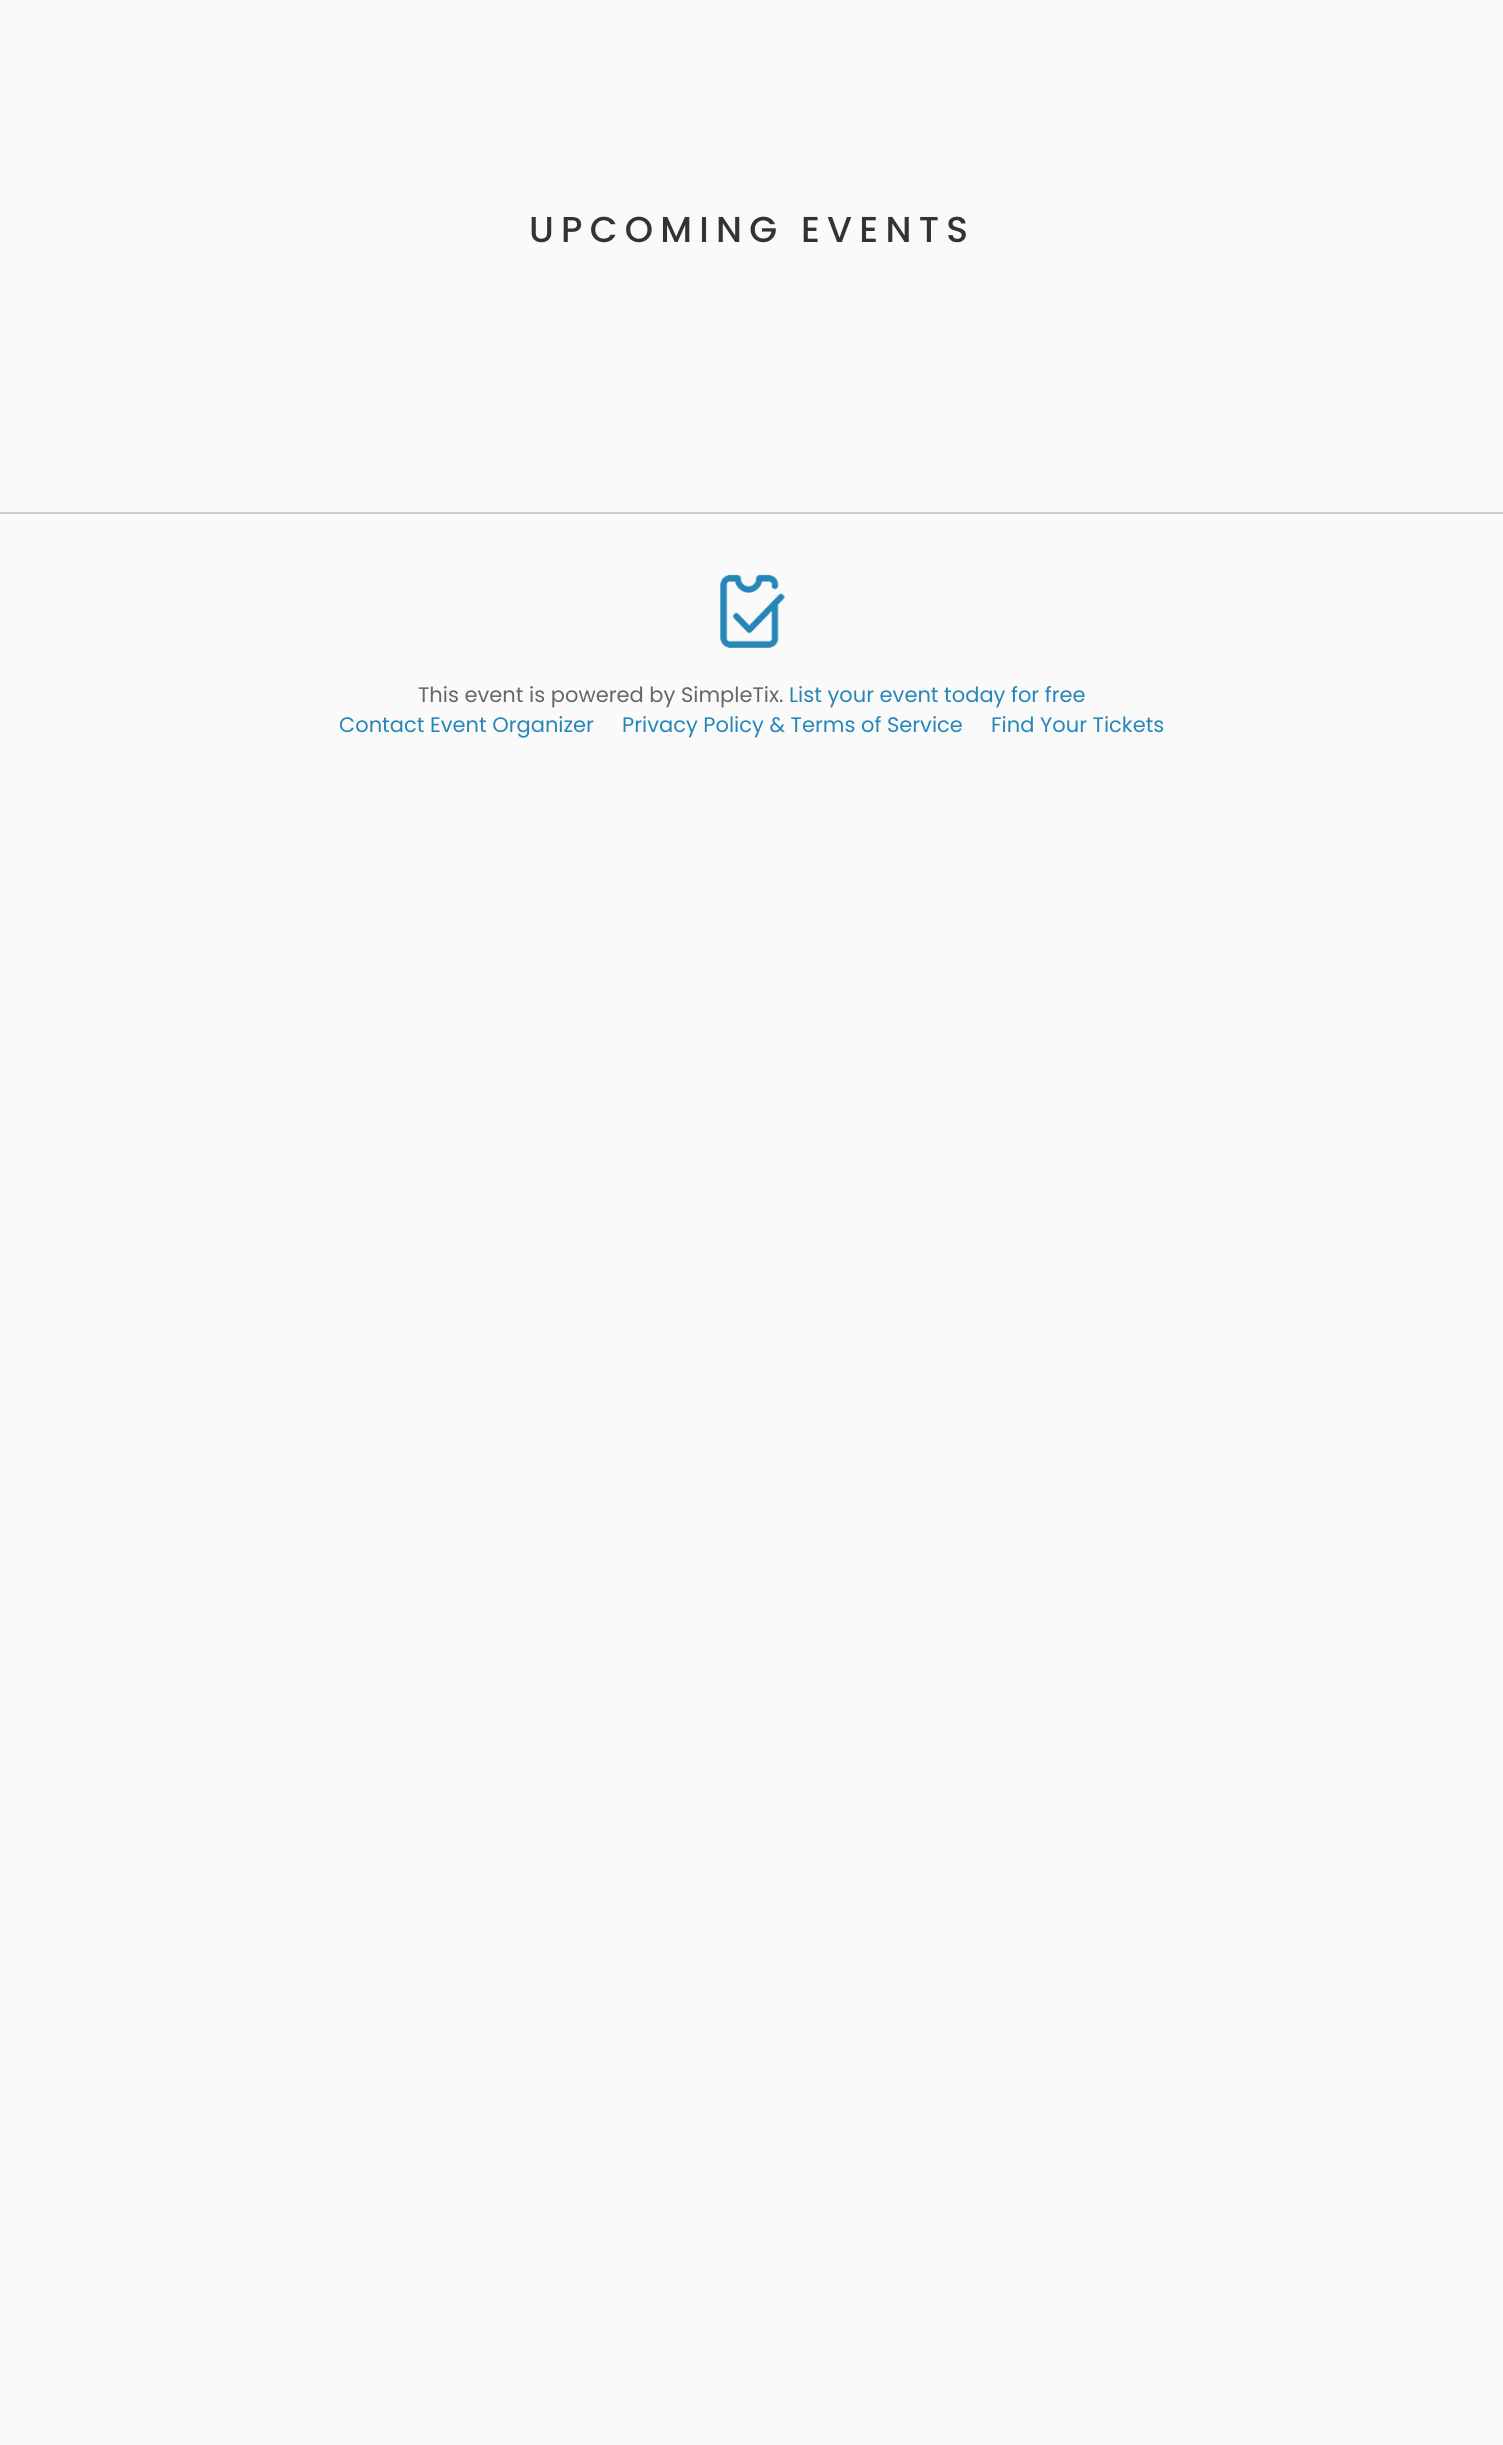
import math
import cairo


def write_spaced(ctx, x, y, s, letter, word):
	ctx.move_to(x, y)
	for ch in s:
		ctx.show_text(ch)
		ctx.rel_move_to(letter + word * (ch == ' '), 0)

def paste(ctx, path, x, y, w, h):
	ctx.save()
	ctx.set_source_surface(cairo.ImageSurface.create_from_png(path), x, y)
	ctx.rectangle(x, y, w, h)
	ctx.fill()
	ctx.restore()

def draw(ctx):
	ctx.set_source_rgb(0.98, 0.98, 0.98)
	ctx.paint()
	ctx.select_font_face('Poppins Medium')
	ctx.set_font_size(36)
	ctx.set_source_rgb(0.2, 0.2, 0.2)
	write_spaced(ctx, 529, 242, 'UPCOMING EVENTS', 7.25, 0)
	ctx.set_source_rgb(0.8, 0.8, 0.8)
	ctx.rectangle(0, 512, 1503, 2)
	ctx.fill()
	paste(ctx, 'media/1.png', 720, 574, 65, 74)
	ctx.select_font_face('Poppins')
	ctx.set_font_size(21)
	ctx.set_source_rgb(0.4, 0.4, 0.4)
	ctx.move_to(418, 702)
	ctx.show_text('This event is powered by SimpleTix.')
	ctx.set_source_rgb(0.145, 0.525, 0.718)
	for x, y, s in [
		(789, 702, 'List your event today for free'),
		(339, 732, 'Contact Event Organizer'),
		(622, 732, 'Privacy Policy & Terms of Service'),
		(991, 732, 'Find Your Tickets'),
	]:
		ctx.move_to(x, y)
		ctx.show_text(s)


surface = cairo.ImageSurface(cairo.FORMAT_RGB24, 1503, 2445)
ctx = cairo.Context(surface)
options = cairo.FontOptions()
options.set_hint_metrics(cairo.HINT_METRICS_OFF)
options.set_hint_style(cairo.HINT_STYLE_NONE)
ctx.set_font_options(options)
ctx.set_miter_limit(4)
draw(ctx)
surface.write_to_png('image.png')
